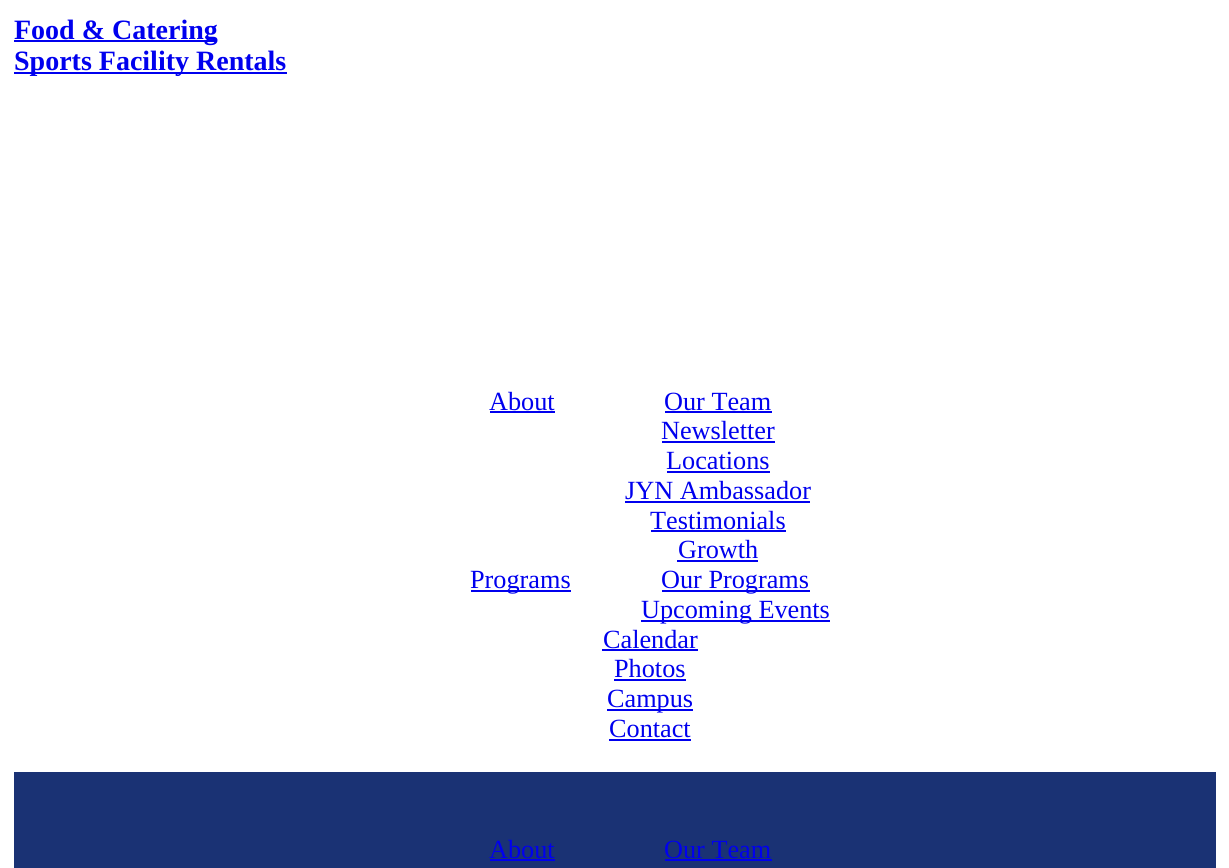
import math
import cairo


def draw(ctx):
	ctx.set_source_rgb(1, 1, 1)
	ctx.paint()
	ctx.set_source_rgb(0, 0, 0.933)
	ctx.rectangle(14, 40, 203, 2)
	ctx.fill()
	ctx.select_font_face('Liberation Serif', cairo.FONT_SLANT_NORMAL, cairo.FONT_WEIGHT_BOLD)
	ctx.set_font_size(28)
	ctx.move_to(14, 39)
	ctx.show_text('Food & Catering')
	ctx.rectangle(14, 72, 273, 2)
	ctx.fill()
	ctx.move_to(14, 70)
	ctx.show_text('Sports Facility Rentals')
	ctx.select_font_face('Liberation Serif')
	ctx.set_font_size(26.25)
	ctx.move_to(489, 410)
	ctx.show_text('About')
	ctx.rectangle(490, 411, 65, 2)
	ctx.fill()
	ctx.move_to(664, 410)
	ctx.show_text('Our Team')
	ctx.rectangle(665, 411, 107, 2)
	ctx.fill()
	ctx.move_to(661, 439)
	ctx.show_text('Newsletter')
	ctx.rectangle(662, 441, 113, 2)
	ctx.fill()
	ctx.move_to(666, 469)
	ctx.show_text('Locations')
	ctx.rectangle(667, 471, 103, 2)
	ctx.fill()
	ctx.move_to(625, 499)
	ctx.show_text('JYN Ambassador')
	ctx.rectangle(625, 501, 185, 2)
	ctx.fill()
	ctx.move_to(650, 529)
	ctx.show_text('Testimonials')
	ctx.rectangle(651, 530, 135, 2)
	ctx.fill()
	ctx.move_to(678, 558)
	ctx.show_text('Growth')
	ctx.rectangle(677, 560, 81, 2)
	ctx.fill()
	ctx.rectangle(471, 590, 100, 2)
	ctx.fill()
	ctx.move_to(470, 588)
	ctx.show_text('Programs')
	ctx.rectangle(662, 590, 148, 2)
	ctx.fill()
	ctx.move_to(661, 588)
	ctx.show_text('Our Programs')
	ctx.rectangle(641, 620, 189, 2)
	ctx.fill()
	ctx.move_to(641, 618)
	ctx.show_text('Upcoming Events')
	ctx.move_to(603, 648)
	ctx.show_text('Calendar')
	ctx.rectangle(602, 649, 96, 2)
	ctx.fill()
	ctx.move_to(614, 677)
	ctx.show_text('Photos')
	ctx.rectangle(614, 679, 72, 2)
	ctx.fill()
	ctx.rectangle(607, 709, 86, 2)
	ctx.fill()
	ctx.move_to(607, 707)
	ctx.show_text('Campus')
	ctx.move_to(609, 737)
	ctx.show_text('Contact')
	ctx.rectangle(609, 739, 82, 2)
	ctx.fill()
	ctx.set_source_rgb(0.102, 0.196, 0.455)
	ctx.rectangle(14, 772, 1202, 96)
	ctx.fill()
	ctx.set_source_rgb(0, 0, 0.933)
	ctx.move_to(489, 858)
	ctx.show_text('About')
	ctx.rectangle(490, 859, 65, 2)
	ctx.fill()
	ctx.move_to(664, 858)
	ctx.show_text('Our Team')
	ctx.rectangle(665, 859, 107, 2)
	ctx.fill()


surface = cairo.ImageSurface(cairo.FORMAT_RGB24, 1229, 868)
ctx = cairo.Context(surface)
options = cairo.FontOptions()
options.set_hint_metrics(cairo.HINT_METRICS_OFF)
options.set_hint_style(cairo.HINT_STYLE_NONE)
ctx.set_font_options(options)
ctx.set_miter_limit(4)
draw(ctx)
surface.write_to_png('image.png')
